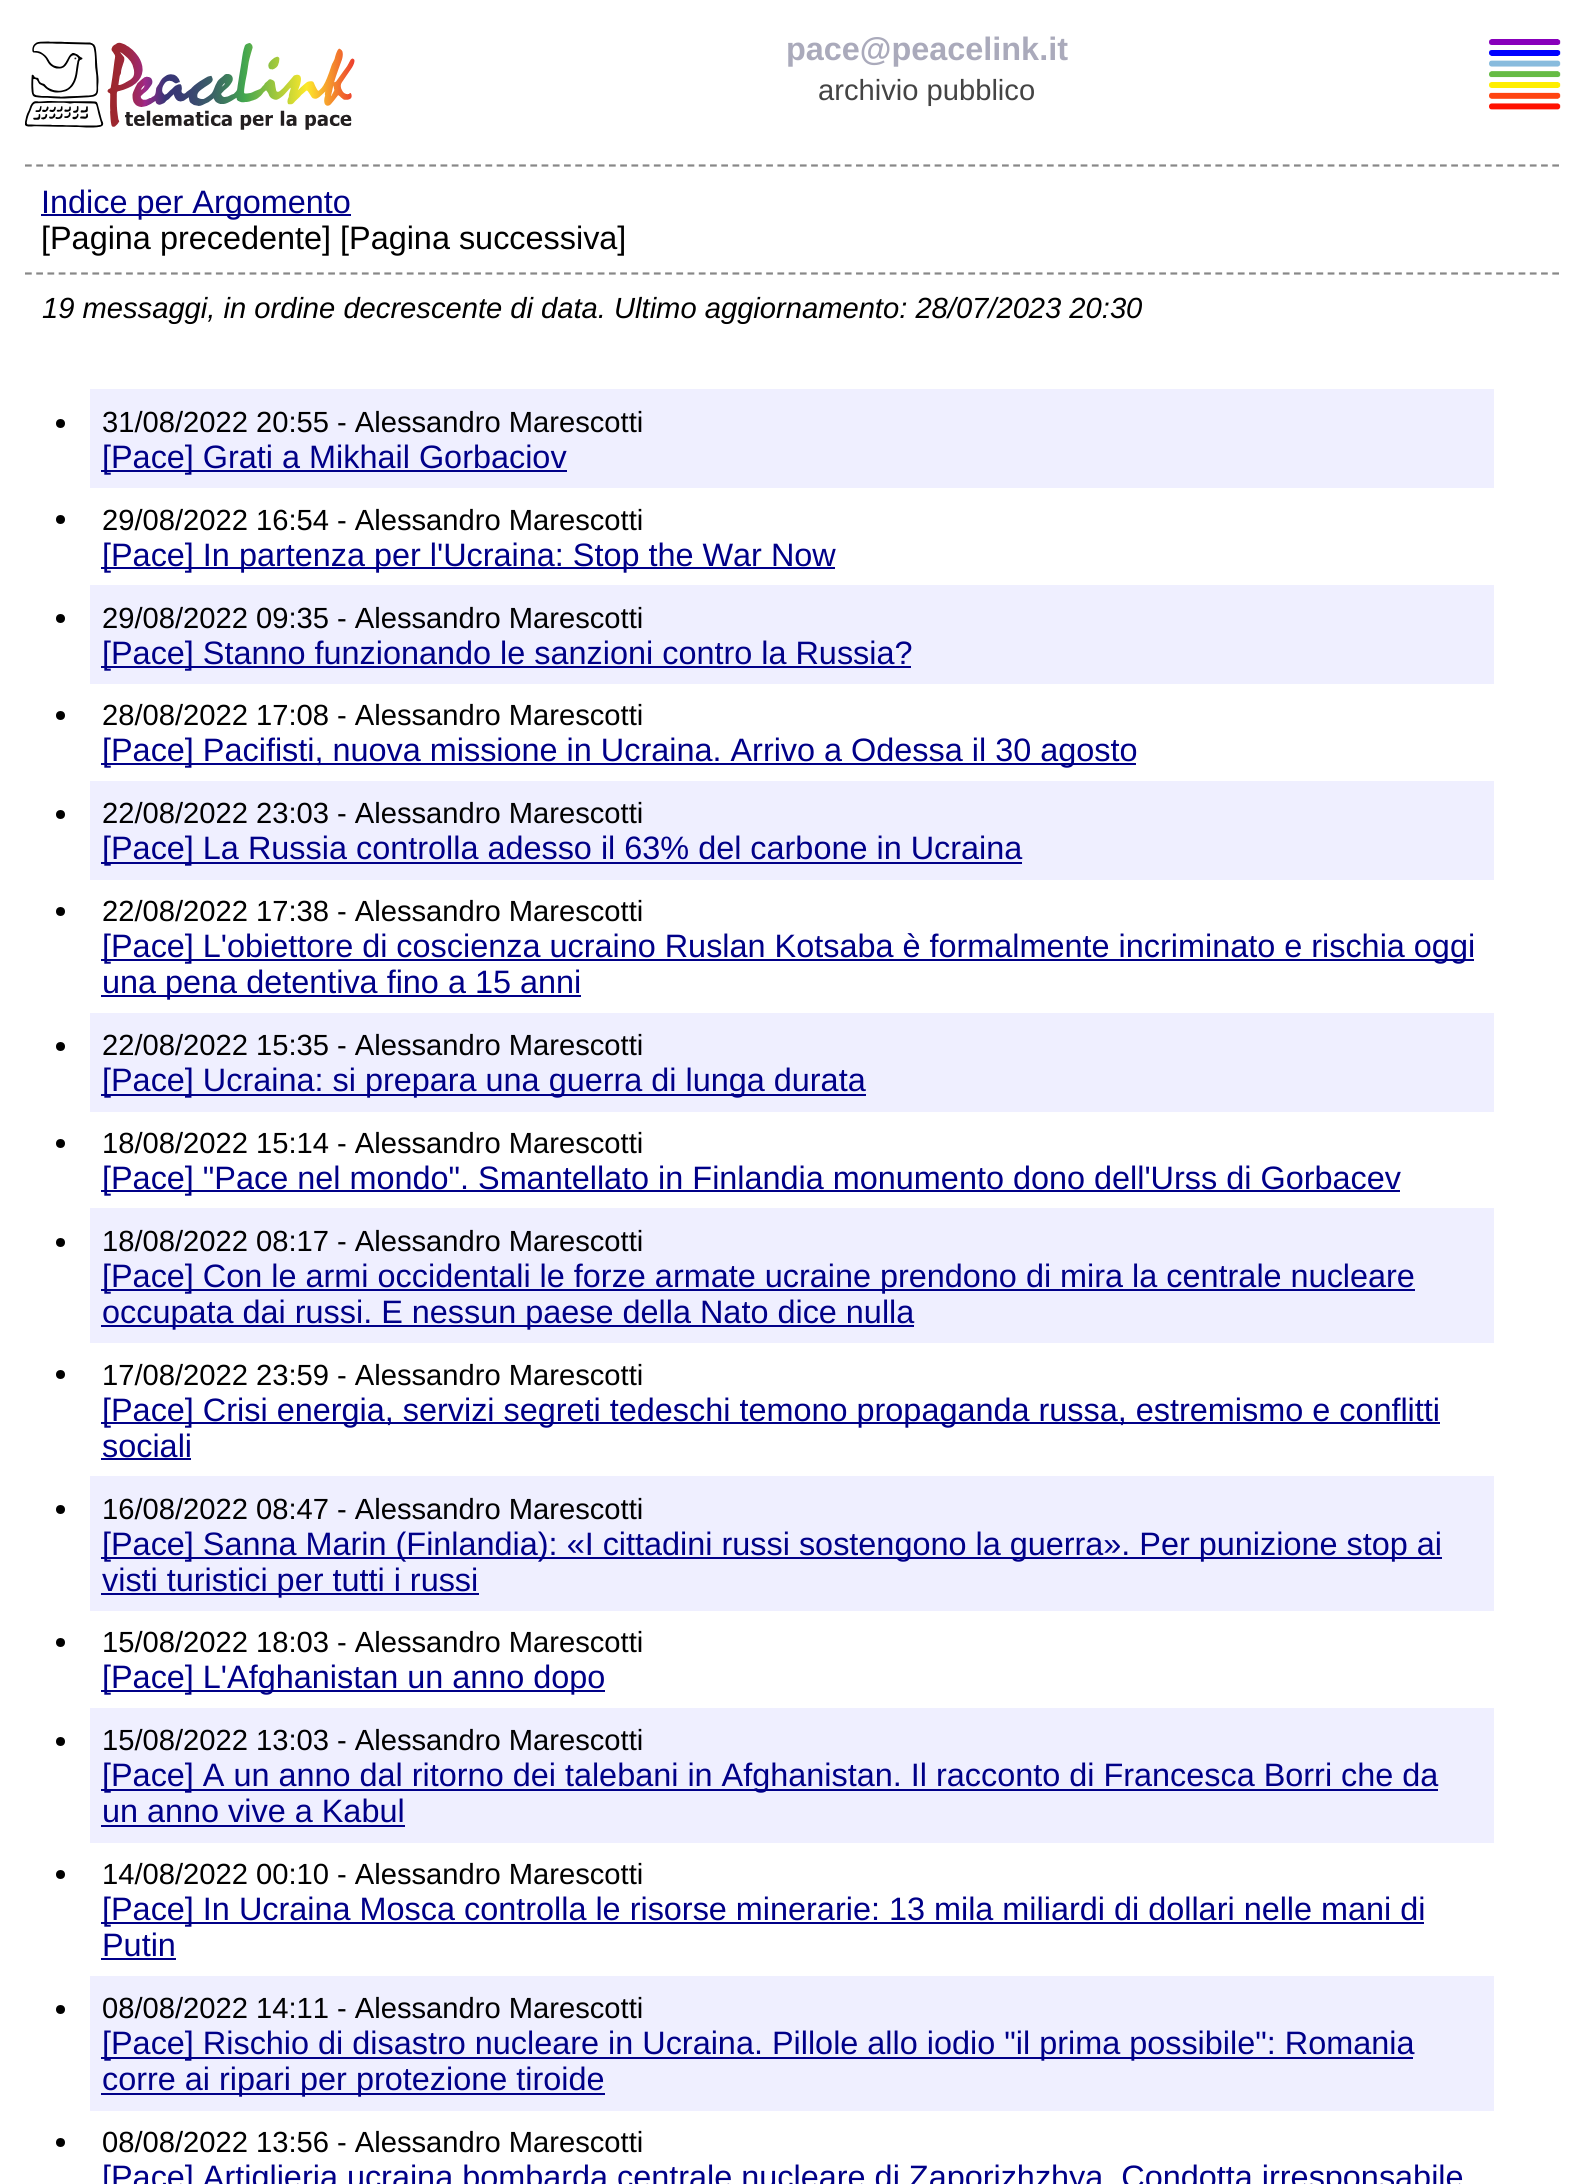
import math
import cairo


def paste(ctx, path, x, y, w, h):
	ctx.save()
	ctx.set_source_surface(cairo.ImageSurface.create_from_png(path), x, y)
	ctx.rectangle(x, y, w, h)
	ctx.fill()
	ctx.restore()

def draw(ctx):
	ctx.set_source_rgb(1, 1, 1)
	ctx.paint()
	paste(ctx, 'media/1.png', 25, 41, 330, 89)
	ctx.select_font_face('Liberation Sans', cairo.FONT_SLANT_NORMAL, cairo.FONT_WEIGHT_BOLD)
	ctx.set_font_size(32.4)
	ctx.set_source_rgb(0.667, 0.667, 0.733)
	ctx.move_to(786, 60)
	ctx.show_text('pace@peacelink.it')
	ctx.select_font_face('Liberation Sans')
	ctx.set_font_size(29.15)
	ctx.set_source_rgb(0.267, 0.267, 0.267)
	ctx.move_to(818, 100)
	ctx.show_text('archivio pubblico')
	paste(ctx, 'media/2.png', 1489, 39, 72, 71)
	ctx.new_path()
	ctx.move_to(25, 165.5)
	ctx.line_to(1559, 165.5)
	ctx.set_source_rgb(0.533, 0.533, 0.533)
	ctx.set_line_width(2.2)
	ctx.set_dash([6.75, 4.48])
	ctx.stroke()
	ctx.new_path()
	ctx.move_to(25, 273.5)
	ctx.line_to(1559, 273.5)
	ctx.stroke()
	ctx.set_source_rgb(0, 0, 0.533)
	ctx.rectangle(41, 214, 310, 2)
	ctx.fill()
	ctx.set_font_size(32.4)
	ctx.move_to(41, 213)
	ctx.show_text('Indice per Argomento')
	ctx.set_source_rgb(0, 0, 0)
	ctx.move_to(41, 249)
	ctx.show_text('[Pagina precedente] [Pagina successiva]')
	ctx.select_font_face('Liberation Sans', cairo.FONT_SLANT_ITALIC)
	ctx.set_font_size(29.15)
	ctx.move_to(42, 318)
	ctx.show_text('19 messaggi, in ordine decrescente di data. Ultimo aggiornamento: 28/07/2023 20:30')
	ctx.set_source_rgb(0.937, 0.937, 1)
	ctx.rectangle(90, 389, 1404, 99)
	ctx.fill()
	ctx.set_source_rgb(0, 0, 0)
	ctx.arc(60.5, 423.5, 4.5, 0, 2 * math.pi)
	ctx.fill()
	ctx.select_font_face('Liberation Sans')
	ctx.move_to(102, 432)
	ctx.show_text('31/08/2022 20:55 - Alessandro Marescotti')
	ctx.set_source_rgb(0, 0, 0.533)
	ctx.rectangle(101, 470, 466, 2)
	ctx.fill()
	ctx.set_font_size(32.4)
	ctx.move_to(102, 468)
	ctx.show_text('[Pace] Grati a Mikhail Gorbaciov')
	ctx.set_source_rgb(0, 0, 0)
	ctx.new_path()
	ctx.arc(60.5, 519.5, 4.5, 0, 2 * math.pi)
	ctx.fill()
	ctx.set_font_size(29.15)
	ctx.move_to(102, 530)
	ctx.show_text('29/08/2022 16:54 - Alessandro Marescotti')
	ctx.set_source_rgb(0, 0, 0.533)
	ctx.rectangle(101, 567, 734, 2)
	ctx.fill()
	ctx.set_font_size(32.4)
	ctx.move_to(102, 566)
	ctx.show_text('[Pace] In partenza per l\'Ucraina: Stop the War Now')
	ctx.set_source_rgb(0.937, 0.937, 1)
	ctx.rectangle(90, 585, 1404, 99)
	ctx.fill()
	ctx.set_source_rgb(0, 0, 0)
	ctx.arc(60.5, 618.5, 4.5, 0, 2 * math.pi)
	ctx.fill()
	ctx.set_font_size(29.15)
	ctx.move_to(102, 628)
	ctx.show_text('29/08/2022 09:35 - Alessandro Marescotti')
	ctx.set_source_rgb(0, 0, 0.533)
	ctx.rectangle(101, 666, 810, 2)
	ctx.fill()
	ctx.set_font_size(32.4)
	ctx.move_to(102, 664)
	ctx.show_text('[Pace] Stanno funzionando le sanzioni contro la Russia?')
	ctx.set_source_rgb(0, 0, 0)
	ctx.new_path()
	ctx.arc(60.5, 715.5, 4.5, 0, 2 * math.pi)
	ctx.fill()
	ctx.set_font_size(29.15)
	ctx.move_to(102, 725)
	ctx.show_text('28/08/2022 17:08 - Alessandro Marescotti')
	ctx.set_source_rgb(0, 0, 0.533)
	ctx.rectangle(101, 763, 1035, 2)
	ctx.fill()
	ctx.set_font_size(32.4)
	ctx.move_to(102, 761)
	ctx.show_text('[Pace] Pacifisti, nuova missione in Ucraina. Arrivo a Odessa il 30 agosto')
	ctx.set_source_rgb(0.937, 0.937, 1)
	ctx.rectangle(90, 781, 1404, 99)
	ctx.fill()
	ctx.set_source_rgb(0, 0, 0)
	ctx.arc(60.5, 814.5, 4.5, 0, 2 * math.pi)
	ctx.fill()
	ctx.set_font_size(29.15)
	ctx.move_to(102, 823)
	ctx.show_text('22/08/2022 23:03 - Alessandro Marescotti')
	ctx.set_source_rgb(0, 0, 0.533)
	ctx.rectangle(101, 862, 921, 2)
	ctx.fill()
	ctx.set_font_size(32.4)
	ctx.move_to(102, 859)
	ctx.show_text('[Pace] La Russia controlla adesso il 63% del carbone in Ucraina')
	ctx.set_source_rgb(0, 0, 0)
	ctx.new_path()
	ctx.arc(60.5, 911.5, 4.5, 0, 2 * math.pi)
	ctx.fill()
	ctx.set_font_size(29.15)
	ctx.move_to(102, 921)
	ctx.show_text('22/08/2022 17:38 - Alessandro Marescotti')
	ctx.set_source_rgb(0, 0, 0.533)
	ctx.rectangle(101, 959, 1373, 2)
	ctx.fill()
	ctx.set_font_size(32.4)
	ctx.move_to(102, 957)
	ctx.show_text('[Pace] L\'obiettore di coscienza ucraino Ruslan Kotsaba è formalmente incriminato e rischia oggi')
	ctx.rectangle(101, 995, 480, 2)
	ctx.fill()
	ctx.move_to(102, 993)
	ctx.show_text('una pena detentiva fino a 15 anni')
	ctx.set_source_rgb(0.937, 0.937, 1)
	ctx.rectangle(90, 1013, 1404, 99)
	ctx.fill()
	ctx.set_source_rgb(0, 0, 0)
	ctx.arc(60.5, 1046.5, 4.5, 0, 2 * math.pi)
	ctx.fill()
	ctx.set_font_size(29.15)
	ctx.move_to(102, 1055)
	ctx.show_text('22/08/2022 15:35 - Alessandro Marescotti')
	ctx.set_source_rgb(0, 0, 0.533)
	ctx.rectangle(101, 1094, 765, 2)
	ctx.fill()
	ctx.set_font_size(32.4)
	ctx.move_to(102, 1091)
	ctx.show_text('[Pace] Ucraina: si prepara una guerra di lunga durata')
	ctx.set_source_rgb(0, 0, 0)
	ctx.new_path()
	ctx.arc(60.5, 1143.5, 4.5, 0, 2 * math.pi)
	ctx.fill()
	ctx.set_font_size(29.15)
	ctx.move_to(102, 1153)
	ctx.show_text('18/08/2022 15:14 - Alessandro Marescotti')
	ctx.set_source_rgb(0, 0, 0.533)
	ctx.rectangle(101, 1190, 1299, 2)
	ctx.fill()
	ctx.set_font_size(32.4)
	ctx.move_to(102, 1189)
	ctx.show_text('[Pace] "Pace nel mondo". Smantellato in Finlandia monumento dono dell\'Urss di Gorbacev')
	ctx.set_source_rgb(0.937, 0.937, 1)
	ctx.rectangle(90, 1208, 1404, 135)
	ctx.fill()
	ctx.set_source_rgb(0, 0, 0)
	ctx.arc(60.5, 1242.5, 4.5, 0, 2 * math.pi)
	ctx.fill()
	ctx.set_font_size(29.15)
	ctx.move_to(102, 1251)
	ctx.show_text('18/08/2022 08:17 - Alessandro Marescotti')
	ctx.set_source_rgb(0, 0, 0.533)
	ctx.rectangle(101, 1289, 1314, 2)
	ctx.fill()
	ctx.set_font_size(32.4)
	ctx.move_to(102, 1287)
	ctx.show_text('[Pace] Con le armi occidentali le forze armate ucraine prendono di mira la centrale nucleare')
	ctx.rectangle(101, 1325, 813, 2)
	ctx.fill()
	ctx.move_to(102, 1323)
	ctx.show_text('occupata dai russi. E nessun paese della Nato dice nulla')
	ctx.set_source_rgb(0, 0, 0)
	ctx.new_path()
	ctx.arc(60.5, 1374.5, 4.5, 0, 2 * math.pi)
	ctx.fill()
	ctx.set_font_size(29.15)
	ctx.move_to(102, 1385)
	ctx.show_text('17/08/2022 23:59 - Alessandro Marescotti')
	ctx.set_source_rgb(0, 0, 0.533)
	ctx.rectangle(101, 1422, 1339, 2)
	ctx.fill()
	ctx.set_font_size(32.4)
	ctx.move_to(102, 1421)
	ctx.show_text('[Pace] Crisi energia, servizi segreti tedeschi temono propaganda russa, estremismo e conflitti')
	ctx.move_to(102, 1457)
	ctx.show_text('sociali')
	ctx.rectangle(101, 1458, 90, 2)
	ctx.fill()
	ctx.set_source_rgb(0.937, 0.937, 1)
	ctx.rectangle(90, 1476, 1404, 135)
	ctx.fill()
	ctx.set_source_rgb(0, 0, 0)
	ctx.arc(60.5, 1509.5, 4.5, 0, 2 * math.pi)
	ctx.fill()
	ctx.set_font_size(29.15)
	ctx.move_to(102, 1519)
	ctx.show_text('16/08/2022 08:47 - Alessandro Marescotti')
	ctx.set_source_rgb(0, 0, 0.533)
	ctx.rectangle(101, 1557, 1341, 2)
	ctx.fill()
	ctx.set_font_size(32.4)
	ctx.move_to(102, 1555)
	ctx.show_text('[Pace] Sanna Marin (Finlandia): «I cittadini russi sostengono la guerra». Per punizione stop ai')
	ctx.rectangle(101, 1593, 378, 2)
	ctx.fill()
	ctx.move_to(102, 1591)
	ctx.show_text('visti turistici per tutti i russi')
	ctx.set_source_rgb(0, 0, 0)
	ctx.new_path()
	ctx.arc(60.5, 1642.5, 4.5, 0, 2 * math.pi)
	ctx.fill()
	ctx.set_font_size(29.15)
	ctx.move_to(102, 1652)
	ctx.show_text('15/08/2022 18:03 - Alessandro Marescotti')
	ctx.set_source_rgb(0, 0, 0.533)
	ctx.rectangle(101, 1690, 504, 2)
	ctx.fill()
	ctx.set_font_size(32.4)
	ctx.move_to(102, 1688)
	ctx.show_text('[Pace] L\'Afghanistan un anno dopo')
	ctx.set_source_rgb(0.937, 0.937, 1)
	ctx.rectangle(90, 1708, 1404, 135)
	ctx.fill()
	ctx.set_source_rgb(0, 0, 0)
	ctx.arc(60.5, 1741.5, 4.5, 0, 2 * math.pi)
	ctx.fill()
	ctx.set_font_size(29.15)
	ctx.move_to(102, 1750)
	ctx.show_text('15/08/2022 13:03 - Alessandro Marescotti')
	ctx.set_source_rgb(0, 0, 0.533)
	ctx.rectangle(101, 1789, 1337, 2)
	ctx.fill()
	ctx.set_font_size(32.4)
	ctx.move_to(102, 1786)
	ctx.show_text('[Pace] A un anno dal ritorno dei talebani in Afghanistan. Il racconto di Francesca Borri che da')
	ctx.move_to(102, 1822)
	ctx.show_text('un anno vive a Kabul')
	ctx.rectangle(101, 1825, 304, 2)
	ctx.fill()
	ctx.set_source_rgb(0, 0, 0)
	ctx.arc(60.5, 1874.5, 4.5, 0, 2 * math.pi)
	ctx.fill()
	ctx.set_font_size(29.15)
	ctx.move_to(102, 1884)
	ctx.show_text('14/08/2022 00:10 - Alessandro Marescotti')
	ctx.set_source_rgb(0, 0, 0.533)
	ctx.rectangle(101, 1922, 1323, 2)
	ctx.fill()
	ctx.set_font_size(32.4)
	ctx.move_to(102, 1920)
	ctx.show_text('[Pace] In Ucraina Mosca controlla le risorse minerarie: 13 mila miliardi di dollari nelle mani di')
	ctx.move_to(102, 1956)
	ctx.show_text('Putin')
	ctx.rectangle(101, 1958, 75, 2)
	ctx.fill()
	ctx.set_source_rgb(0.937, 0.937, 1)
	ctx.rectangle(90, 1976, 1404, 135)
	ctx.fill()
	ctx.set_source_rgb(0, 0, 0)
	ctx.arc(60.5, 2009.5, 4.5, 0, 2 * math.pi)
	ctx.fill()
	ctx.set_font_size(29.15)
	ctx.move_to(102, 2018)
	ctx.show_text('08/08/2022 14:11 - Alessandro Marescotti')
	ctx.set_source_rgb(0, 0, 0.533)
	ctx.rectangle(101, 2057, 1312, 2)
	ctx.fill()
	ctx.set_font_size(32.4)
	ctx.move_to(102, 2054)
	ctx.show_text('[Pace] Rischio di disastro nucleare in Ucraina. Pillole allo iodio "il prima possibile": Romania')
	ctx.rectangle(101, 2093, 504, 2)
	ctx.fill()
	ctx.move_to(102, 2090)
	ctx.show_text('corre ai ripari per protezione tiroide')
	ctx.set_source_rgb(0, 0, 0)
	ctx.new_path()
	ctx.arc(60.5, 2142.5, 4.5, 0, 2 * math.pi)
	ctx.fill()
	ctx.set_font_size(29.15)
	ctx.move_to(102, 2152)
	ctx.show_text('08/08/2022 13:56 - Alessandro Marescotti')
	ctx.set_font_size(32.4)
	ctx.set_source_rgb(0, 0, 0.533)
	ctx.move_to(102, 2188)
	ctx.show_text('[Pace] Artiglieria ucraina bombarda centrale nucleare di Zaporizhzhya. Condotta irresponsabile')


surface = cairo.ImageSurface(cairo.FORMAT_RGB24, 1583, 2184)
ctx = cairo.Context(surface)
options = cairo.FontOptions()
options.set_hint_metrics(cairo.HINT_METRICS_OFF)
options.set_hint_style(cairo.HINT_STYLE_NONE)
ctx.set_font_options(options)
ctx.set_miter_limit(4)
draw(ctx)
surface.write_to_png('image.png')
